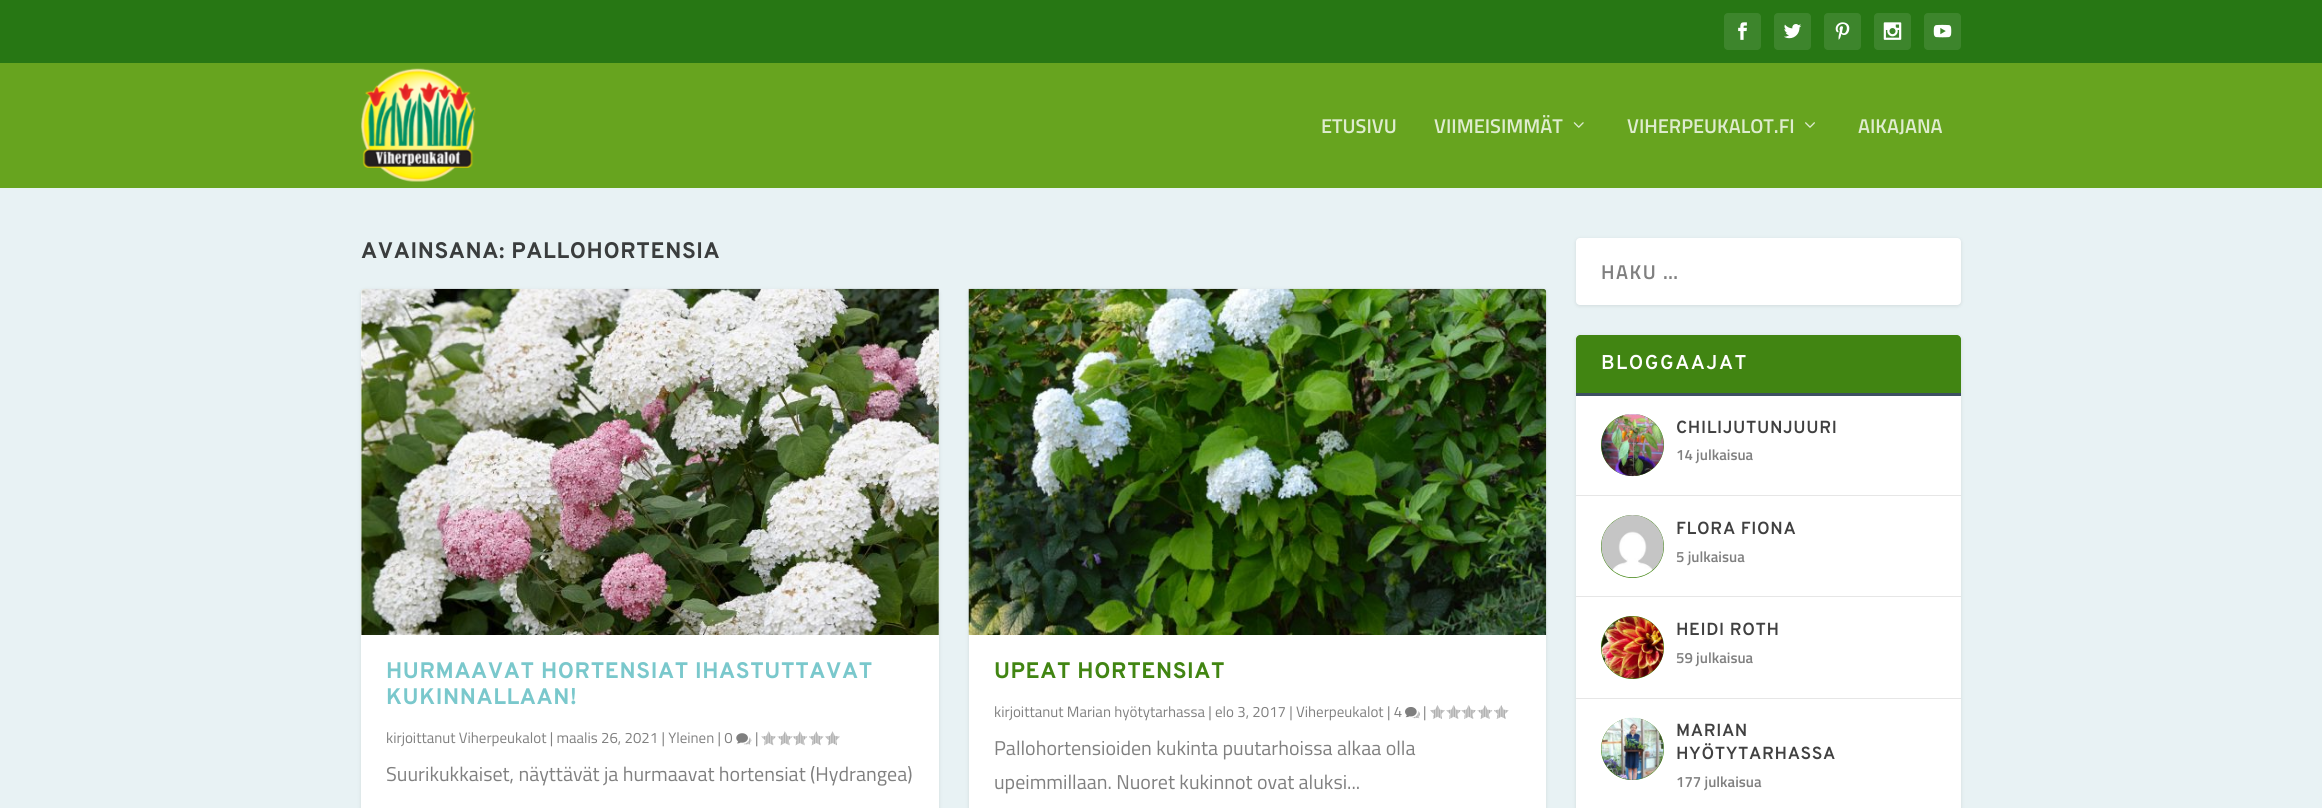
import math
import cairo


def write_spaced(ctx, x, y, s, letter, word):
	ctx.move_to(x, y)
	for ch in s:
		ctx.show_text(ch)
		ctx.rel_move_to(letter + word * (ch == ' '), 0)

def round_path(ctx, x, y, w, h, r):
	ctx.new_sub_path()
	for i, (u, v) in enumerate([(x + w - r, y + h - r), (x + r, y + h - r), (x + r, y + r), (x + w - r, y + r)]):
		ctx.arc(u, v, r, i * math.pi / 2, (i + 1) * math.pi / 2)
	ctx.close_path()

def blur_box(ctx, x, y, w, h, r, blur, alpha):
	ctx.push_group_with_content(cairo.CONTENT_ALPHA)
	ctx.set_operator(cairo.OPERATOR_SOURCE)
	for i in range(15, -16, -2):
		e = blur * i / 6
		if min(w, h) + 2 * e > 0:
			ctx.set_source_rgba(0, 0, 0, alpha * math.erfc((i - 1) / 8.5) / 2)
			round_path(ctx, x - e, y - e, w + 2 * e, h + 2 * e, max(0, min(r + e + blur * .6, min(w, h) / 2 + e)))
			ctx.fill()
	ctx.mask(ctx.pop_group())

def paste(ctx, path, x, y, w, h):
	ctx.save()
	ctx.set_source_surface(cairo.ImageSurface.create_from_png(path), x, y)
	ctx.rectangle(x, y, w, h)
	ctx.fill()
	ctx.restore()

def draw(ctx):
	ctx.set_source_rgb(0.91, 0.949, 0.957)
	ctx.paint()
	ctx.set_source_rgb(0.153, 0.467, 0.082)
	ctx.rectangle(0, 0, 2322, 63)
	ctx.fill()
	ctx.set_source_rgb(0.239, 0.522, 0.173)
	round_path(ctx, 1724, 13, 37, 37, 4)
	ctx.fill()
	paste(ctx, 'media/1.png', 1738, 22, 9, 18)
	round_path(ctx, 1774, 13, 37, 37, 4)
	ctx.fill()
	paste(ctx, 'media/2.png', 1784, 24, 18, 15)
	round_path(ctx, 1824, 13, 37, 37, 4)
	ctx.fill()
	paste(ctx, 'media/3.png', 1835, 22, 15, 18)
	round_path(ctx, 1874, 13, 37, 37, 4)
	ctx.fill()
	paste(ctx, 'media/4.png', 1883, 22, 19, 18)
	round_path(ctx, 1924, 13, 37, 37, 4)
	ctx.fill()
	paste(ctx, 'media/5.png', 1933, 24, 19, 14)
	ctx.set_source_rgb(0.404, 0.643, 0.122)
	ctx.rectangle(0, 63, 2322, 125)
	ctx.fill()
	paste(ctx, 'media/6.png', 361, 68, 115, 114)
	ctx.select_font_face('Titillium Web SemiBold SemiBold')
	ctx.set_font_size(20)
	ctx.set_source_rgb(0.871, 0.922, 0.808)
	ctx.move_to(1321, 133)
	ctx.show_text('ETUSIVU')
	ctx.move_to(1434, 133)
	ctx.show_text('VIIMEISIMMÄT')
	paste(ctx, 'media/7.png', 1573, 122, 11, 6)
	ctx.move_to(1627, 133)
	ctx.show_text('VIHERPEUKALOT.FI')
	paste(ctx, 'media/8.png', 1805, 122, 10, 6)
	ctx.move_to(1858, 133)
	ctx.show_text('AIKAJANA')
	ctx.select_font_face('Overpass', cairo.FONT_SLANT_NORMAL, cairo.FONT_WEIGHT_BOLD)
	ctx.set_font_size(22.5)
	ctx.set_source_rgb(0.227, 0.239, 0.239)
	write_spaced(ctx, 361, 258, 'AVAINSANA: PALLOHORTENSIA', 0.6, 0)
	ctx.set_source_rgb(0, 0, 0)
	blur_box(ctx, 361, 290, 578, 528, 4, 2, 0.1)
	ctx.set_source_rgb(1, 1, 1)
	round_path(ctx, 361, 289, 578, 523, 4)
	ctx.fill()
	paste(ctx, 'media/9.png', 361, 288, 578, 347)
	ctx.set_source_rgb(0.478, 0.784, 0.8)
	write_spaced(ctx, 386, 678, 'HURMAAVAT HORTENSIAT IHASTUTTAVAT', 0.6, 0)
	write_spaced(ctx, 386, 704, 'KUKINNALLAAN!', 0.6, 0)
	ctx.select_font_face('Titillium Web')
	ctx.set_font_size(15)
	ctx.set_source_rgb(0.502, 0.502, 0.502)
	ctx.move_to(386, 743)
	ctx.show_text('kirjoittanut Viherpeukalot | maalis 26, 2021 | Yleinen | 0')
	paste(ctx, 'media/10.png', 736, 733, 16, 12)
	ctx.move_to(755, 743)
	ctx.show_text('|')
	paste(ctx, 'media/11.png', 761, 731, 15, 15)
	paste(ctx, 'media/12.png', 777, 731, 16, 15)
	paste(ctx, 'media/13.png', 792, 731, 16, 15)
	paste(ctx, 'media/14.png', 809, 731, 15, 15)
	paste(ctx, 'media/15.png', 825, 731, 15, 15)
	ctx.set_font_size(20)
	ctx.move_to(386, 781)
	ctx.show_text('Suurikukkaiset, näyttävät ja hurmaavat hortensiat (Hydrangea)')
	ctx.set_source_rgb(0, 0, 0)
	blur_box(ctx, 969, 290, 577, 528, 4, 2, 0.1)
	ctx.set_source_rgb(1, 1, 1)
	round_path(ctx, 969, 289, 577, 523, 4)
	ctx.fill()
	paste(ctx, 'media/16.png', 968, 288, 579, 347)
	ctx.select_font_face('Overpass', cairo.FONT_SLANT_NORMAL, cairo.FONT_WEIGHT_BOLD)
	ctx.set_font_size(22.5)
	ctx.set_source_rgb(0.255, 0.522, 0.071)
	write_spaced(ctx, 994, 678, 'UPEAT HORTENSIAT', 0.6, 0)
	ctx.select_font_face('Titillium Web')
	ctx.set_font_size(15)
	ctx.set_source_rgb(0.502, 0.502, 0.502)
	ctx.move_to(994, 717)
	ctx.show_text('kirjoittanut Marian hyötytarhassa | elo 3, 2017 | Viherpeukalot | 4')
	paste(ctx, 'media/17.png', 1405, 707, 15, 12)
	ctx.move_to(1423, 717)
	ctx.show_text('|')
	paste(ctx, 'media/18.png', 1430, 705, 15, 14)
	paste(ctx, 'media/19.png', 1446, 705, 15, 14)
	paste(ctx, 'media/19.png', 1461, 705, 15, 14)
	paste(ctx, 'media/20.png', 1477, 705, 16, 14)
	paste(ctx, 'media/21.png', 1494, 705, 15, 14)
	ctx.set_font_size(20)
	ctx.move_to(994, 755)
	ctx.show_text('Pallohortensioiden kukinta puutarhoissa alkaa olla')
	ctx.move_to(994, 789)
	ctx.show_text('upeimmillaan. Nuoret kukinnot ovat aluksi...')
	ctx.set_source_rgb(0, 0, 0)
	blur_box(ctx, 1576, 239, 385, 67, 4, 2, 0.1)
	ctx.set_source_rgb(1, 1, 1)
	round_path(ctx, 1576, 238, 385, 67, 4)
	ctx.fill()
	ctx.select_font_face('Titillium Web SemiBold SemiBold')
	ctx.set_source_rgb(0.502, 0.502, 0.502)
	write_spaced(ctx, 1601, 279, 'HAKU …', 1.5, 0)
	ctx.set_source_rgb(0, 0, 0)
	blur_box(ctx, 1576, 336, 385, 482, 4, 2, 0.1)
	ctx.set_source_rgb(1, 1, 1)
	round_path(ctx, 1576, 335, 385, 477, 4)
	ctx.fill()
	ctx.set_source_rgb(0.255, 0.522, 0.071)
	ctx.new_path()
	ctx.move_to(1580, 335)
	ctx.line_to(1957, 335)
	ctx.curve_to(1959, 335, 1961, 337, 1961, 339)
	ctx.line_to(1961, 395)
	ctx.line_to(1576, 395)
	ctx.line_to(1576, 339)
	ctx.curve_to(1576, 337, 1578, 335, 1580, 335)
	ctx.close_path()
	ctx.fill()
	ctx.set_source_rgb(0.243, 0.314, 0.384)
	ctx.rectangle(1576, 393, 385, 3)
	ctx.fill()
	ctx.select_font_face('Overpass SemiBold')
	ctx.set_source_rgb(1, 1, 1)
	write_spaced(ctx, 1601, 369, 'BLOGGAAJAT', 1.5, 0)
	ctx.set_source_rgb(0.902, 0.902, 0.902)
	ctx.rectangle(1576, 495, 385, 1)
	ctx.fill()
	ctx.set_source_rgb(0.255, 0.522, 0.071)
	round_path(ctx, 1601, 414, 63, 62, 31)
	ctx.fill()
	paste(ctx, 'media/22.png', 1601, 414, 63, 63)
	ctx.set_font_size(17.5)
	ctx.set_source_rgb(0.251, 0.251, 0.251)
	write_spaced(ctx, 1676, 433, 'CHILIJUTUNJUURI', 0.6, 0)
	ctx.select_font_face('Titillium Web SemiBold SemiBold')
	ctx.set_font_size(15)
	ctx.set_source_rgb(0.502, 0.502, 0.502)
	ctx.move_to(1676, 460)
	ctx.show_text('14 julkaisua')
	ctx.set_source_rgb(0.902, 0.902, 0.902)
	ctx.rectangle(1576, 596, 385, 1)
	ctx.fill()
	ctx.set_source_rgb(0.255, 0.522, 0.071)
	ctx.arc(1632.5, 546.5, 31.5, 0, 2 * math.pi)
	ctx.fill()
	paste(ctx, 'media/23.png', 1601, 515, 63, 63)
	ctx.select_font_face('Overpass SemiBold')
	ctx.set_font_size(17.5)
	ctx.set_source_rgb(0.251, 0.251, 0.251)
	write_spaced(ctx, 1676, 534, 'FLORA FIONA', 0.6, 0)
	ctx.select_font_face('Titillium Web SemiBold SemiBold')
	ctx.set_font_size(15)
	ctx.set_source_rgb(0.502, 0.502, 0.502)
	ctx.move_to(1676, 562)
	ctx.show_text('5 julkaisua')
	ctx.set_source_rgb(0.902, 0.902, 0.902)
	ctx.rectangle(1576, 698, 385, 1)
	ctx.fill()
	ctx.set_source_rgb(0.255, 0.522, 0.071)
	ctx.arc(1632.5, 647.5, 31.5, 0, 2 * math.pi)
	ctx.fill()
	paste(ctx, 'media/24.png', 1601, 616, 63, 63)
	ctx.select_font_face('Overpass SemiBold')
	ctx.set_font_size(17.5)
	ctx.set_source_rgb(0.251, 0.251, 0.251)
	write_spaced(ctx, 1676, 635, 'HEIDI ROTH', 0.6, 0)
	ctx.select_font_face('Titillium Web SemiBold SemiBold')
	ctx.set_font_size(15)
	ctx.set_source_rgb(0.502, 0.502, 0.502)
	ctx.move_to(1676, 663)
	ctx.show_text('59 julkaisua')
	ctx.set_source_rgb(0.255, 0.522, 0.071)
	round_path(ctx, 1601, 718, 63, 62, 31)
	ctx.fill()
	paste(ctx, 'media/25.png', 1601, 717, 63, 63)
	ctx.select_font_face('Overpass SemiBold')
	ctx.set_font_size(17.5)
	ctx.set_source_rgb(0.251, 0.251, 0.251)
	write_spaced(ctx, 1676, 736, 'MARIAN', 0.6, 0)
	write_spaced(ctx, 1676, 759, 'HYÖTYTARHASSA', 0.6, 0)
	ctx.select_font_face('Titillium Web SemiBold SemiBold')
	ctx.set_font_size(15)
	ctx.set_source_rgb(0.502, 0.502, 0.502)
	ctx.move_to(1676, 787)
	ctx.show_text('177 julkaisua')


surface = cairo.ImageSurface(cairo.FORMAT_RGB24, 2322, 808)
ctx = cairo.Context(surface)
options = cairo.FontOptions()
options.set_hint_metrics(cairo.HINT_METRICS_OFF)
options.set_hint_style(cairo.HINT_STYLE_NONE)
ctx.set_font_options(options)
ctx.set_miter_limit(4)
draw(ctx)
surface.write_to_png('image.png')
